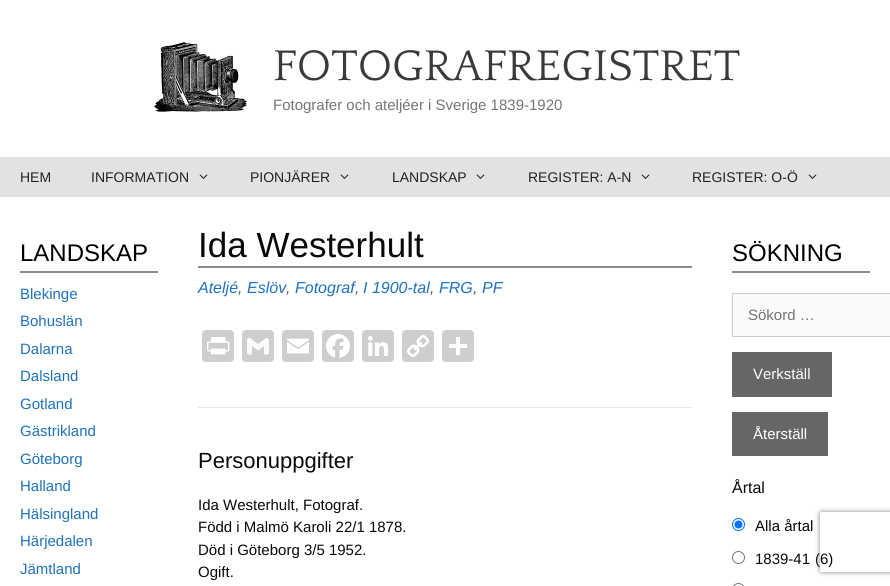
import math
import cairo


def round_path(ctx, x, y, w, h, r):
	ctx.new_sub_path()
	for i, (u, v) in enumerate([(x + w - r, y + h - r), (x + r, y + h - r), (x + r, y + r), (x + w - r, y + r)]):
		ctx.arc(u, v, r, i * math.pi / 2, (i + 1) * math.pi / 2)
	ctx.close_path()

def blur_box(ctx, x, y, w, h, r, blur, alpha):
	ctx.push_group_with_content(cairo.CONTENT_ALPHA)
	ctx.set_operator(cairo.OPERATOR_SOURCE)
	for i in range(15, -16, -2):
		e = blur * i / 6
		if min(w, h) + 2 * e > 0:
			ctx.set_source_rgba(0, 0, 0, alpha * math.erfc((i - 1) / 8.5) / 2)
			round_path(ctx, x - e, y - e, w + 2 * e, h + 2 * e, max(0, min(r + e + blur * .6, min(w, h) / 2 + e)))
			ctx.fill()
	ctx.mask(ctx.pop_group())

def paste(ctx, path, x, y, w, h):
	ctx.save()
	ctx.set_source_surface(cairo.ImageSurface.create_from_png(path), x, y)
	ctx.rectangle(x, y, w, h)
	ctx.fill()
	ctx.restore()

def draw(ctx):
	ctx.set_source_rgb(1, 1, 1)
	ctx.paint()
	paste(ctx, 'media/1.png', 154, 42, 93, 70)
	ctx.select_font_face('Quattrocento')
	ctx.set_font_size(45)
	ctx.set_source_rgb(0.227, 0.227, 0.227)
	ctx.move_to(273, 80)
	ctx.show_text('FOTOGRAFREGISTRET')
	ctx.select_font_face('Liberation Sans')
	ctx.set_font_size(15)
	ctx.set_source_rgb(0.459, 0.459, 0.459)
	ctx.move_to(273, 110)
	ctx.show_text('Fotografer och ateljéer i Sverige 1839-1920')
	ctx.set_source_rgb(0.886, 0.886, 0.886)
	ctx.rectangle(0, 157, 890, 40)
	ctx.fill()
	ctx.set_font_size(14)
	ctx.set_source_rgb(0.133, 0.133, 0.133)
	ctx.move_to(20, 182)
	ctx.show_text('HEM')
	ctx.move_to(91, 182)
	ctx.show_text('INFORMATION')
	paste(ctx, 'media/2.png', 199, 174, 9, 5)
	ctx.move_to(250, 182)
	ctx.show_text('PIONJÄRER')
	paste(ctx, 'media/2.png', 340, 174, 9, 5)
	ctx.move_to(392, 182)
	ctx.show_text('LANDSKAP')
	paste(ctx, 'media/2.png', 476, 174, 9, 5)
	ctx.move_to(528, 182)
	ctx.show_text('REGISTER: A-N')
	paste(ctx, 'media/2.png', 641, 174, 9, 5)
	ctx.move_to(692, 182)
	ctx.show_text('REGISTER: O-Ö')
	paste(ctx, 'media/2.png', 808, 174, 9, 5)
	ctx.set_source_rgb(0.549, 0.549, 0.549)
	ctx.rectangle(20, 271, 138, 2)
	ctx.fill()
	ctx.set_font_size(24)
	ctx.set_source_rgb(0, 0, 0)
	ctx.move_to(20, 261)
	ctx.show_text('LANDSKAP')
	ctx.set_font_size(15)
	ctx.set_source_rgb(0.118, 0.447, 0.741)
	for x, y, s in [
		(20, 299, 'Blekinge'),
		(20, 326, 'Bohuslän'),
		(20, 354, 'Dalarna'),
		(20, 381, 'Dalsland'),
		(20, 409, 'Gotland'),
		(20, 436, 'Gästrikland'),
		(20, 464, 'Göteborg'),
		(20, 491, 'Halland'),
		(20, 519, 'Hälsingland'),
		(20, 546, 'Härjedalen'),
		(20, 574, 'Jämtland'),
	]:
		ctx.move_to(x, y)
		ctx.show_text(s)
	ctx.set_source_rgb(0.549, 0.549, 0.549)
	ctx.rectangle(198, 266, 494, 2)
	ctx.fill()
	ctx.set_font_size(35)
	ctx.set_source_rgb(0.039, 0.039, 0.039)
	ctx.move_to(198, 257)
	ctx.show_text('Ida Westerhult')
	ctx.select_font_face('Liberation Sans', cairo.FONT_SLANT_ITALIC)
	ctx.set_font_size(16)
	ctx.set_source_rgb(0.118, 0.447, 0.741)
	for x, y, s in [
		(198, 293, 'Ateljé'),
		(247, 293, 'Eslöv'),
		(295, 293, 'Fotograf'),
		(363, 293, 'I 1900-tal'),
		(439, 293, 'FRG'),
		(482, 293, 'PF'),
	]:
		ctx.move_to(x, y)
		ctx.show_text(s)
	ctx.set_source_rgb(0.349, 0.349, 0.349)
	for x, y, s in [
		(238, 293, ','),
		(286, 293, ','),
		(355, 293, ','),
		(430, 293, ','),
		(473, 293, ','),
	]:
		ctx.move_to(x, y)
		ctx.show_text(s)
	ctx.set_source_rgb(0.808, 0.808, 0.808)
	round_path(ctx, 202, 330, 32, 32, 4)
	ctx.fill()
	paste(ctx, 'media/3.png', 207, 337, 23, 18)
	round_path(ctx, 242, 330, 32, 32, 4)
	ctx.fill()
	paste(ctx, 'media/4.png', 247, 338, 22, 17)
	round_path(ctx, 282, 330, 32, 32, 4)
	ctx.fill()
	paste(ctx, 'media/5.png', 287, 338, 22, 16)
	round_path(ctx, 322, 330, 32, 32, 4)
	ctx.fill()
	paste(ctx, 'media/6.png', 326, 334, 24, 24)
	round_path(ctx, 362, 330, 32, 32, 4)
	ctx.fill()
	paste(ctx, 'media/7.png', 368, 336, 21, 20)
	round_path(ctx, 402, 330, 32, 32, 4)
	ctx.fill()
	paste(ctx, 'media/8.png', 407, 335, 22, 22)
	round_path(ctx, 442, 330, 32, 32, 4)
	ctx.fill()
	ctx.set_source_rgb(1, 1, 1)
	ctx.rectangle(456, 337, 4, 18)
	ctx.rectangle(449, 344, 18, 4)
	ctx.fill()
	ctx.set_source_rgb(0.902, 0.902, 0.902)
	ctx.rectangle(198, 407, 494, 1)
	ctx.fill()
	ctx.select_font_face('Liberation Sans')
	ctx.set_font_size(22)
	ctx.set_source_rgb(0.039, 0.039, 0.039)
	ctx.move_to(198, 468)
	ctx.show_text('Personuppgifter')
	ctx.set_font_size(15)
	for x, y, s in [
		(198, 510, 'Ida Westerhult, Fotograf.'),
		(198, 532, 'Född i Malmö Karoli 22/1 1878.'),
		(198, 555, 'Död i Göteborg 3/5 1952.'),
		(198, 577, 'Ogift.'),
	]:
		ctx.move_to(x, y)
		ctx.show_text(s)
	ctx.set_source_rgb(0.549, 0.549, 0.549)
	ctx.rectangle(732, 271, 138, 2)
	ctx.fill()
	ctx.set_font_size(24)
	ctx.set_source_rgb(0, 0, 0)
	ctx.move_to(732, 261)
	ctx.show_text('SÖKNING')
	ctx.set_source_rgb(0.98, 0.98, 0.98)
	ctx.rectangle(732.5, 293.5, 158, 43)
	ctx.fill_preserve()
	ctx.set_source_rgb(0.8, 0.8, 0.8)
	ctx.set_line_width(1)
	ctx.stroke()
	ctx.set_font_size(15)
	ctx.set_source_rgb(0.459, 0.459, 0.459)
	ctx.move_to(748, 320)
	ctx.show_text('Sökord …')
	ctx.set_source_rgb(0.4, 0.4, 0.4)
	ctx.rectangle(732, 352, 100, 45)
	ctx.fill()
	ctx.set_source_rgb(1, 1, 1)
	ctx.move_to(753, 379)
	ctx.show_text('Verkställ')
	ctx.set_source_rgb(0.4, 0.4, 0.4)
	ctx.rectangle(732, 412, 96, 44)
	ctx.fill()
	ctx.set_source_rgb(1, 1, 1)
	ctx.move_to(753, 439)
	ctx.show_text('Återställ')
	ctx.set_font_size(16)
	ctx.set_source_rgb(0.039, 0.039, 0.039)
	ctx.move_to(732, 493)
	ctx.show_text('Årtal')
	ctx.new_path()
	ctx.arc(738.5, 524.5, 6, 0, 2 * math.pi)
	ctx.set_source_rgb(0, 0.459, 1)
	ctx.stroke()
	ctx.arc(738.5, 524.5, 4, 0, 2 * math.pi)
	ctx.fill()
	ctx.set_font_size(15)
	ctx.set_source_rgb(0.039, 0.039, 0.039)
	ctx.move_to(755, 531)
	ctx.show_text('Alla årtal')
	ctx.new_path()
	ctx.arc(738.5, 557.5, 6, 0, 2 * math.pi)
	ctx.set_source_rgb(0.463, 0.463, 0.463)
	ctx.stroke()
	ctx.set_source_rgb(0.039, 0.039, 0.039)
	ctx.move_to(755, 564)
	ctx.show_text('1839-41')
	ctx.move_to(815, 564)
	ctx.show_text('(6)')
	round_path(ctx, 732.5, 583.5, 12, 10, 6)
	ctx.set_source_rgb(0.463, 0.463, 0.463)
	ctx.stroke()
	ctx.save()
	ctx.set_fill_rule(cairo.FILL_RULE_EVEN_ODD)
	ctx.new_path()
	ctx.move_to(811, 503)
	ctx.line_to(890, 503)
	ctx.line_to(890, 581)
	ctx.line_to(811, 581)
	ctx.close_path()
	ctx.move_to(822, 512)
	ctx.line_to(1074, 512)
	ctx.curve_to(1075, 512, 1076, 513, 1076, 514)
	ctx.line_to(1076, 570)
	ctx.curve_to(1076, 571, 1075, 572, 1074, 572)
	ctx.line_to(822, 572)
	ctx.curve_to(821, 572, 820, 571, 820, 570)
	ctx.line_to(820, 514)
	ctx.curve_to(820, 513, 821, 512, 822, 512)
	ctx.close_path()
	ctx.clip()
	ctx.set_source_rgb(0.502, 0.502, 0.502)
	blur_box(ctx, 820, 512, 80, 60, 2, 2.5, 1)
	ctx.restore()


surface = cairo.ImageSurface(cairo.FORMAT_RGB24, 890, 586)
ctx = cairo.Context(surface)
options = cairo.FontOptions()
options.set_hint_metrics(cairo.HINT_METRICS_OFF)
options.set_hint_style(cairo.HINT_STYLE_NONE)
ctx.set_font_options(options)
ctx.set_miter_limit(4)
draw(ctx)
surface.write_to_png('image.png')
